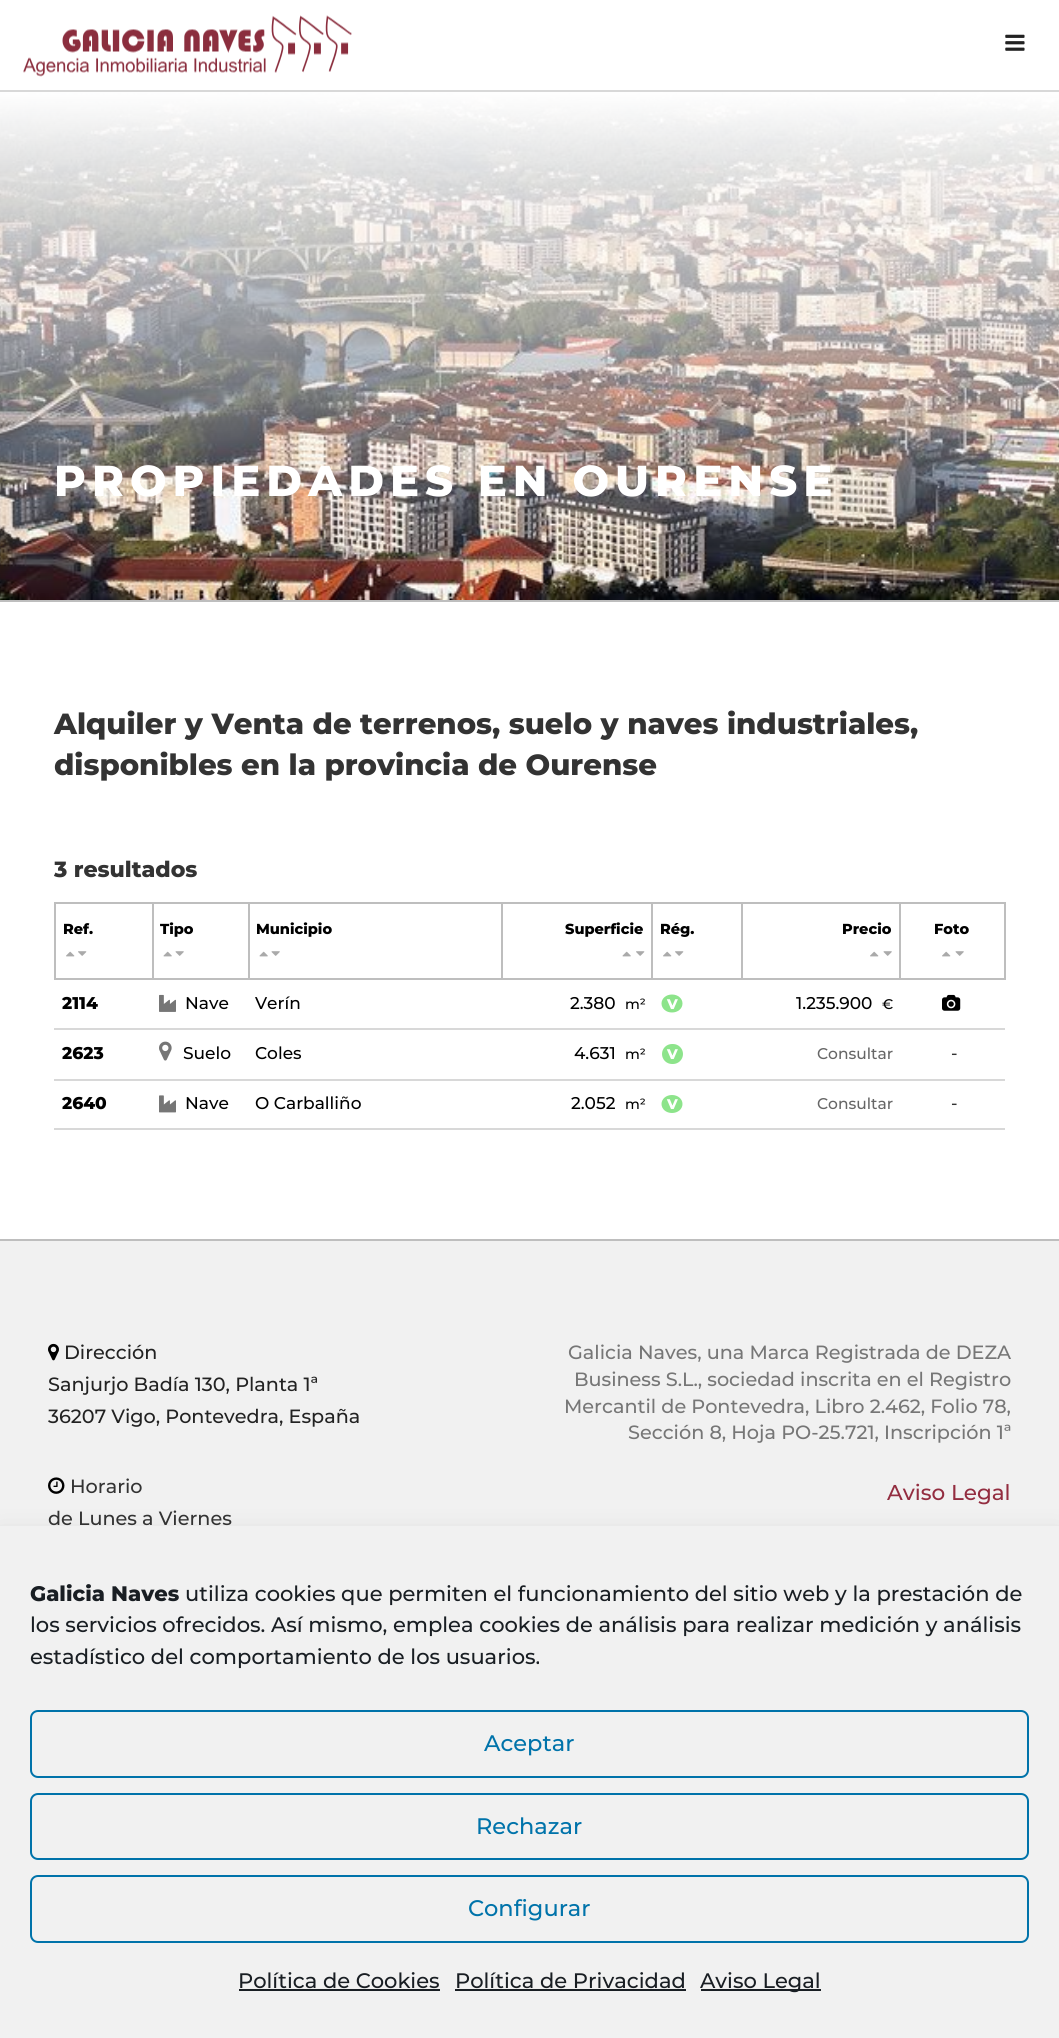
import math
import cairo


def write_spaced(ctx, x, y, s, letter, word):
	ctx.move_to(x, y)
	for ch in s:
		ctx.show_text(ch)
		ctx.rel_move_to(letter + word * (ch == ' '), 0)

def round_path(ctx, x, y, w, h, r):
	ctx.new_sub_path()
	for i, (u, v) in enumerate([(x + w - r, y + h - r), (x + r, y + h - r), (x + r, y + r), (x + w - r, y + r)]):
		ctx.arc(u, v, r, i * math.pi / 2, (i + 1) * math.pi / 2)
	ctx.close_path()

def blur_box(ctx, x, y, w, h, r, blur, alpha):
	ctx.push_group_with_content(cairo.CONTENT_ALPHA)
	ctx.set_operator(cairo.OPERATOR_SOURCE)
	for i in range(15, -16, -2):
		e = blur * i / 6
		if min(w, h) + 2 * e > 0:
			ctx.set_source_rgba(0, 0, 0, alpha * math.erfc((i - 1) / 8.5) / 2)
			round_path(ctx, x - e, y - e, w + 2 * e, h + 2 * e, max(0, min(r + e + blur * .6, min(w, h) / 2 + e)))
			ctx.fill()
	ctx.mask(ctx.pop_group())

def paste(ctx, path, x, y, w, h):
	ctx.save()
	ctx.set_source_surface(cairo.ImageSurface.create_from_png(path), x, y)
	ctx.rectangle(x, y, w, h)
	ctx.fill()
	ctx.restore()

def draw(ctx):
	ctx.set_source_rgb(1, 1, 1)
	ctx.paint()
	ctx.set_source_rgb(0.745, 0.745, 0.745)
	ctx.rectangle(0, 600, 1059, 2)
	ctx.fill()
	ctx.set_source_rgb(0.847, 0.847, 0.847)
	ctx.rectangle(0, 90, 1059, 2)
	ctx.fill()
	paste(ctx, 'media/1.png', 23, 15, 329, 62)
	paste(ctx, 'media/2.png', 1005, 34, 20, 17)
	paste(ctx, 'media/3.png', 0, 92, 1059, 508)
	ctx.select_font_face('Montserrat ExtraBold')
	ctx.set_font_size(43.25)
	ctx.set_source_rgb(1, 1, 1)
	write_spaced(ctx, 54, 496, 'PROPIEDADES EN OURENSE', 6.05, 0)
	ctx.set_font_size(29.15)
	ctx.set_source_rgb(0.2, 0.2, 0.2)
	ctx.move_to(54, 734)
	ctx.show_text('Alquiler y Venta de terrenos, suelo y naves industriales,')
	ctx.move_to(54, 775)
	ctx.show_text('disponibles en la provincia de Ourense')
	ctx.set_font_size(22)
	ctx.move_to(54, 877)
	ctx.show_text('3 resultados')
	ctx.set_source_rgb(0.745, 0.745, 0.745)
	ctx.rectangle(899, 902, 106, 2)
	ctx.rectangle(1004, 902, 2, 78)
	ctx.rectangle(899, 978, 106, 2)
	ctx.rectangle(899, 902, 2, 78)
	ctx.rectangle(741, 902, 159, 2)
	ctx.rectangle(741, 978, 159, 2)
	ctx.rectangle(741, 902, 2, 78)
	ctx.rectangle(651, 902, 92, 2)
	ctx.rectangle(651, 978, 92, 2)
	ctx.rectangle(651, 902, 2, 78)
	ctx.rectangle(501, 902, 152, 2)
	ctx.rectangle(501, 978, 152, 2)
	ctx.rectangle(501, 902, 2, 78)
	ctx.rectangle(248, 902, 255, 2)
	ctx.rectangle(248, 978, 255, 2)
	ctx.rectangle(248, 902, 2, 78)
	ctx.rectangle(152, 902, 97, 2)
	ctx.rectangle(152, 978, 97, 2)
	ctx.rectangle(152, 902, 2, 78)
	ctx.rectangle(54, 902, 99, 2)
	ctx.rectangle(54, 978, 99, 2)
	ctx.rectangle(54, 902, 2, 78)
	ctx.fill()
	ctx.set_font_size(14.5)
	ctx.set_source_rgb(0, 0, 0)
	ctx.move_to(63, 934)
	ctx.show_text('Ref.')
	paste(ctx, 'media/4.png', 66, 951, 9, 6)
	paste(ctx, 'media/5.png', 78, 951, 9, 5)
	ctx.move_to(160, 934)
	ctx.show_text('Tipo')
	paste(ctx, 'media/6.png', 163, 951, 9, 6)
	paste(ctx, 'media/7.png', 175, 951, 9, 5)
	ctx.move_to(256, 934)
	ctx.show_text('Municipio')
	paste(ctx, 'media/6.png', 259, 951, 9, 6)
	paste(ctx, 'media/7.png', 271, 951, 9, 5)
	ctx.move_to(565, 934)
	ctx.show_text('Superficie')
	paste(ctx, 'media/6.png', 622, 951, 9, 6)
	paste(ctx, 'media/5.png', 636, 951, 9, 5)
	ctx.move_to(660, 934)
	ctx.show_text('Rég.')
	paste(ctx, 'media/4.png', 663, 951, 9, 6)
	paste(ctx, 'media/5.png', 675, 951, 9, 5)
	ctx.move_to(842, 934)
	ctx.show_text('Precio')
	paste(ctx, 'media/4.png', 870, 951, 9, 6)
	paste(ctx, 'media/7.png', 883, 951, 9, 5)
	ctx.move_to(934, 934)
	ctx.show_text('Foto')
	paste(ctx, 'media/4.png', 942, 951, 9, 6)
	paste(ctx, 'media/7.png', 955, 951, 9, 5)
	ctx.set_source_rgb(0.847, 0.847, 0.847)
	ctx.rectangle(54, 1028, 951, 2)
	ctx.fill()
	ctx.set_font_size(17)
	ctx.set_source_rgb(0, 0, 0)
	ctx.move_to(62, 1009)
	ctx.show_text('2114')
	paste(ctx, 'media/8.png', 159, 994, 17, 18)
	ctx.select_font_face('Montserrat Medium')
	for x, y, s in [
		(185, 1009, 'Nave'),
		(255, 1009, 'Verín'),
		(570, 1009, '2.380'),
	]:
		ctx.move_to(x, y)
		ctx.show_text(s)
	ctx.set_font_size(14)
	ctx.move_to(625, 1009)
	ctx.show_text('m²')
	ctx.set_source_rgb(0.553, 0.894, 0.545)
	ctx.new_path()
	ctx.move_to(672, 994.5)
	ctx.curve_to(678, 994.5, 682.5, 998.5, 682.5, 1003.5)
	ctx.curve_to(682.5, 1008.5, 678, 1012.5, 672, 1012.5)
	ctx.curve_to(666, 1012.5, 661.5, 1008.5, 661.5, 1003.5)
	ctx.curve_to(661.5, 998.5, 666, 994.5, 672, 994.5)
	ctx.close_path()
	ctx.fill()
	ctx.select_font_face('Montserrat ExtraBold')
	ctx.set_source_rgb(1, 1, 1)
	ctx.move_to(667, 1009)
	ctx.show_text('V')
	ctx.select_font_face('Montserrat Medium')
	ctx.set_font_size(17)
	ctx.set_source_rgb(0, 0, 0)
	ctx.move_to(796, 1009)
	ctx.show_text('1.235.900')
	ctx.set_font_size(14)
	ctx.move_to(882, 1009)
	ctx.show_text('€')
	paste(ctx, 'media/9.png', 942, 994, 19, 17)
	ctx.set_source_rgb(0.847, 0.847, 0.847)
	ctx.rectangle(54, 1079, 951, 2)
	ctx.fill()
	ctx.select_font_face('Montserrat ExtraBold')
	ctx.set_font_size(17)
	ctx.set_source_rgb(0, 0, 0)
	ctx.move_to(62, 1059)
	ctx.show_text('2623')
	paste(ctx, 'media/10.png', 159, 1041, 13, 20)
	ctx.select_font_face('Montserrat Medium')
	for x, y, s in [
		(183, 1059, 'Suelo'),
		(255, 1059, 'Coles'),
		(574, 1059, '4.631'),
	]:
		ctx.move_to(x, y)
		ctx.show_text(s)
	ctx.set_font_size(14)
	ctx.move_to(625, 1059)
	ctx.show_text('m²')
	ctx.set_source_rgb(0.553, 0.894, 0.545)
	round_path(ctx, 662, 1044, 21, 20, 10)
	ctx.fill()
	ctx.select_font_face('Montserrat ExtraBold')
	ctx.set_source_rgb(1, 1, 1)
	ctx.move_to(667, 1059)
	ctx.show_text('V')
	ctx.select_font_face('Montserrat Medium')
	ctx.set_font_size(15.5)
	ctx.set_source_rgb(0.4, 0.4, 0.4)
	ctx.move_to(817, 1059)
	ctx.show_text('Consultar')
	ctx.set_font_size(17)
	ctx.set_source_rgb(0.2, 0.2, 0.2)
	ctx.move_to(951, 1059)
	ctx.show_text('-')
	ctx.set_source_rgb(0.847, 0.847, 0.847)
	ctx.rectangle(54, 1128, 951, 2)
	ctx.fill()
	ctx.select_font_face('Montserrat ExtraBold')
	ctx.set_source_rgb(0, 0, 0)
	ctx.move_to(62, 1109)
	ctx.show_text('2640')
	paste(ctx, 'media/11.png', 159, 1095, 17, 18)
	ctx.select_font_face('Montserrat Medium')
	for x, y, s in [
		(185, 1109, 'Nave'),
		(255, 1109, 'O Carballiño'),
		(571, 1109, '2.052'),
	]:
		ctx.move_to(x, y)
		ctx.show_text(s)
	ctx.set_font_size(14)
	ctx.move_to(625, 1109)
	ctx.show_text('m²')
	ctx.set_source_rgb(0.553, 0.894, 0.545)
	ctx.new_path()
	ctx.move_to(672, 1095)
	ctx.curve_to(678, 1095, 682.5, 1099, 682.5, 1104)
	ctx.curve_to(682.5, 1109, 678, 1113, 672, 1113)
	ctx.curve_to(666, 1113, 661.5, 1109, 661.5, 1104)
	ctx.curve_to(661.5, 1099, 666, 1095, 672, 1095)
	ctx.close_path()
	ctx.fill()
	ctx.select_font_face('Montserrat ExtraBold')
	ctx.set_source_rgb(1, 1, 1)
	ctx.move_to(667, 1109)
	ctx.show_text('V')
	ctx.select_font_face('Montserrat Medium')
	ctx.set_font_size(15.5)
	ctx.set_source_rgb(0.4, 0.4, 0.4)
	ctx.move_to(817, 1109)
	ctx.show_text('Consultar')
	ctx.set_font_size(17)
	ctx.set_source_rgb(0.2, 0.2, 0.2)
	ctx.move_to(951, 1109)
	ctx.show_text('-')
	ctx.set_source_rgb(0.945, 0.945, 0.945)
	ctx.rectangle(0, 1241, 1059, 285)
	ctx.fill()
	ctx.set_source_rgb(0.745, 0.745, 0.745)
	ctx.rectangle(0, 1239, 1059, 2)
	ctx.fill()
	paste(ctx, 'media/12.png', 48, 1343, 11, 18)
	ctx.set_font_size(19.2)
	ctx.set_source_rgb(0.133, 0.133, 0.133)
	for x, y, s in [
		(64, 1359, 'Dirección'),
		(48, 1391, 'Sanjurjo Badía 130, Planta 1ª'),
		(48, 1423, '36207 Vigo, Pontevedra, España'),
	]:
		ctx.move_to(x, y)
		ctx.show_text(s)
	paste(ctx, 'media/13.png', 48, 1477, 17, 17)
	ctx.set_source_rgb(0.2, 0.2, 0.2)
	ctx.move_to(70, 1493)
	ctx.show_text('Horario')
	ctx.move_to(48, 1525)
	ctx.show_text('de Lunes a Viernes')
	ctx.set_source_rgb(0.463, 0.463, 0.463)
	for x, y, s in [
		(568, 1359, 'Galicia Naves, una Marca Registrada de DEZA'),
		(574, 1386, 'Business S.L., sociedad inscrita en el Registro'),
		(564, 1413, 'Mercantil de Pontevedra, Libro 2.462, Folio 78,'),
		(628, 1439, 'Sección 8, Hoja PO-25.721, Inscripción 1ª'),
	]:
		ctx.move_to(x, y)
		ctx.show_text(s)
	ctx.set_font_size(21.5)
	ctx.set_source_rgb(0.576, 0.176, 0.251)
	ctx.move_to(887, 1500)
	ctx.show_text('Aviso Legal')
	ctx.set_source_rgb(0, 0, 0)
	blur_box(ctx, 0, 1541, 1059, 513, 0, 15, 0.19)
	ctx.set_source_rgb(0.945, 0.945, 0.945)
	ctx.rectangle(0, 1526, 1059, 512)
	ctx.fill()
	ctx.select_font_face('Montserrat ExtraBold')
	ctx.set_font_size(21)
	ctx.set_source_rgb(0.098, 0.118, 0.137)
	ctx.move_to(30, 1601)
	ctx.show_text('Galicia Naves')
	ctx.select_font_face('Montserrat Medium')
	for x, y, s in [
		(185, 1601, 'utiliza cookies que permiten el funcionamiento del sitio web y la prestación de'),
		(30, 1632, 'los servicios ofrecidos. Así mismo, emplea cookies de análisis para realizar medición y análisis'),
		(30, 1664, 'estadístico del comportamiento de los usuarios.'),
	]:
		ctx.move_to(x, y)
		ctx.show_text(s)
	round_path(ctx, 31, 1711, 997, 66, 7)
	ctx.set_source_rgb(0, 0.451, 0.667)
	ctx.stroke()
	ctx.set_font_size(22.5)
	ctx.move_to(484, 1751)
	ctx.show_text('Aceptar')
	round_path(ctx, 31, 1794, 997, 65, 7)
	ctx.stroke()
	ctx.move_to(476, 1834)
	ctx.show_text('Rechazar')
	round_path(ctx, 31, 1876, 997, 66, 7)
	ctx.stroke()
	ctx.move_to(468, 1916)
	ctx.show_text('Configurar')
	ctx.set_font_size(21)
	ctx.set_source_rgb(0.098, 0.118, 0.137)
	ctx.move_to(238, 1988)
	ctx.show_text('Política de Cookies')
	ctx.rectangle(239, 1989, 201, 2)
	ctx.fill()
	ctx.move_to(455, 1988)
	ctx.show_text('Política de Privacidad')
	ctx.rectangle(455, 1989, 231, 2)
	ctx.fill()
	ctx.rectangle(701, 1989, 120, 2)
	ctx.fill()
	ctx.move_to(700, 1988)
	ctx.show_text('Aviso Legal')


surface = cairo.ImageSurface(cairo.FORMAT_RGB24, 1059, 2038)
ctx = cairo.Context(surface)
options = cairo.FontOptions()
options.set_hint_metrics(cairo.HINT_METRICS_OFF)
options.set_hint_style(cairo.HINT_STYLE_NONE)
ctx.set_font_options(options)
ctx.set_miter_limit(4)
draw(ctx)
surface.write_to_png('image.png')
